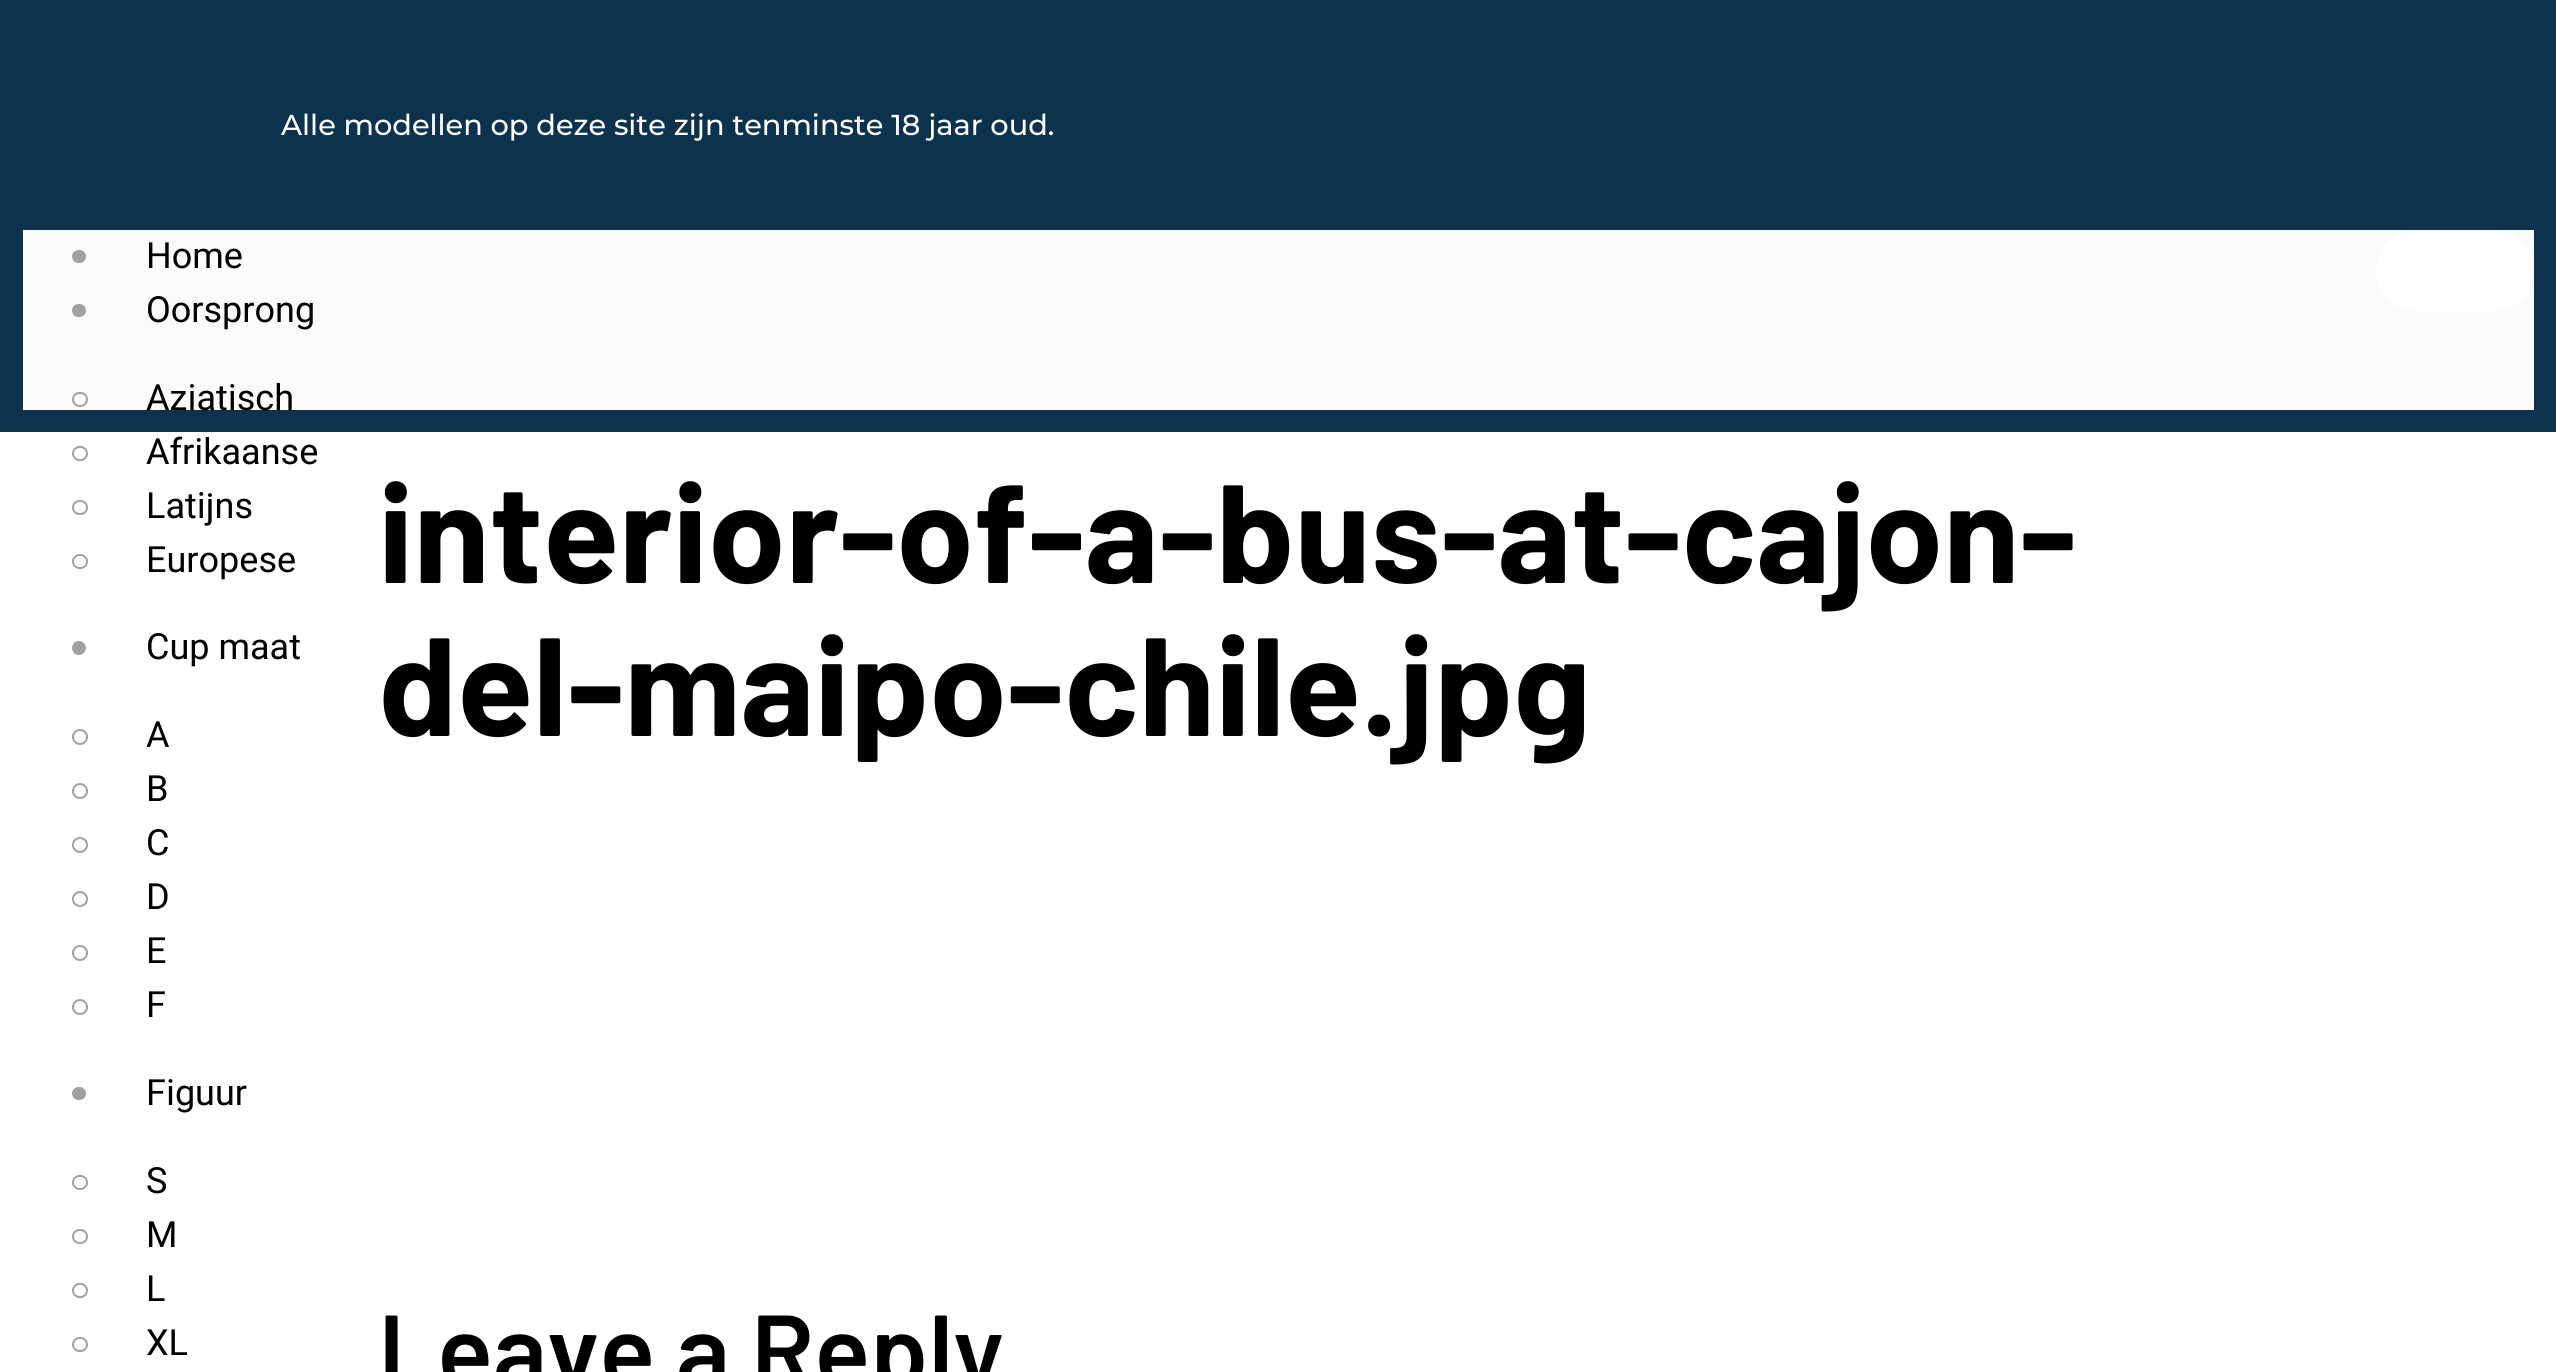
import math
import cairo


def round_path(ctx, x, y, w, h, r):
	ctx.new_sub_path()
	for i, (u, v) in enumerate([(x + w - r, y + h - r), (x + r, y + h - r), (x + r, y + r), (x + w - r, y + r)]):
		ctx.arc(u, v, r, i * math.pi / 2, (i + 1) * math.pi / 2)
	ctx.close_path()

def draw(ctx):
	ctx.set_source_rgb(1, 1, 1)
	ctx.paint()
	ctx.set_source_rgb(0.051, 0.196, 0.302)
	ctx.rectangle(0, 0, 2556, 432)
	ctx.fill()
	ctx.select_font_face('Montserrat Medium')
	ctx.set_font_size(28.8)
	ctx.set_source_rgb(1, 1, 1)
	ctx.move_to(281, 135)
	ctx.show_text('Alle modellen op deze site zijn tenminste 18 jaar oud.')
	ctx.set_source_rgb(0.984, 0.984, 0.984)
	ctx.rectangle(23, 230, 2511, 180)
	ctx.fill()
	ctx.set_source_rgb(0.631, 0.631, 0.631)
	round_path(ctx, 72, 250, 14, 13, 6.5)
	ctx.fill()
	ctx.select_font_face('Heebo')
	ctx.set_font_size(36)
	ctx.set_source_rgb(0, 0, 0)
	ctx.move_to(146, 268)
	ctx.show_text('Home')
	ctx.set_source_rgb(0.631, 0.631, 0.631)
	round_path(ctx, 72, 304, 14, 13, 6.5)
	ctx.fill()
	ctx.set_source_rgb(0, 0, 0)
	ctx.move_to(146, 322)
	ctx.show_text('Oorsprong')
	round_path(ctx, 73, 393, 14, 13, 6.5)
	ctx.set_source_rgb(0.631, 0.631, 0.631)
	ctx.stroke()
	ctx.set_source_rgb(0, 0, 0)
	ctx.move_to(146, 410)
	ctx.show_text('Aziatisch')
	round_path(ctx, 73, 447, 14, 13, 6.5)
	ctx.set_source_rgb(0.631, 0.631, 0.631)
	ctx.stroke()
	ctx.set_source_rgb(0, 0, 0)
	ctx.move_to(146, 464)
	ctx.show_text('Afrikaanse')
	round_path(ctx, 73, 501, 14, 13, 6.5)
	ctx.set_source_rgb(0.631, 0.631, 0.631)
	ctx.stroke()
	ctx.set_source_rgb(0, 0, 0)
	ctx.move_to(146, 518)
	ctx.show_text('Latijns')
	round_path(ctx, 73, 555, 14, 13, 6.5)
	ctx.set_source_rgb(0.631, 0.631, 0.631)
	ctx.stroke()
	ctx.set_source_rgb(0, 0, 0)
	ctx.move_to(146, 572)
	ctx.show_text('Europese')
	ctx.set_source_rgb(0.631, 0.631, 0.631)
	ctx.new_path()
	ctx.arc(79, 648, 7, 0, 2 * math.pi)
	ctx.fill()
	ctx.set_source_rgb(0, 0, 0)
	ctx.move_to(146, 659)
	ctx.show_text('Cup maat')
	ctx.new_path()
	ctx.arc(80, 737, 7, 0, 2 * math.pi)
	ctx.set_source_rgb(0.631, 0.631, 0.631)
	ctx.stroke()
	ctx.set_source_rgb(0, 0, 0)
	ctx.move_to(146, 747)
	ctx.show_text('A')
	ctx.new_path()
	ctx.arc(80, 791, 7, 0, 2 * math.pi)
	ctx.set_source_rgb(0.631, 0.631, 0.631)
	ctx.stroke()
	ctx.set_source_rgb(0, 0, 0)
	ctx.move_to(146, 801)
	ctx.show_text('B')
	ctx.new_path()
	ctx.arc(80, 845, 7, 0, 2 * math.pi)
	ctx.set_source_rgb(0.631, 0.631, 0.631)
	ctx.stroke()
	ctx.set_source_rgb(0, 0, 0)
	ctx.move_to(146, 855)
	ctx.show_text('C')
	ctx.new_path()
	ctx.arc(80, 899, 7, 0, 2 * math.pi)
	ctx.set_source_rgb(0.631, 0.631, 0.631)
	ctx.stroke()
	ctx.set_source_rgb(0, 0, 0)
	ctx.move_to(146, 909)
	ctx.show_text('D')
	ctx.new_path()
	ctx.arc(80, 953, 7, 0, 2 * math.pi)
	ctx.set_source_rgb(0.631, 0.631, 0.631)
	ctx.stroke()
	ctx.set_source_rgb(0, 0, 0)
	ctx.move_to(146, 963)
	ctx.show_text('E')
	ctx.new_path()
	ctx.arc(80, 1007, 7, 0, 2 * math.pi)
	ctx.set_source_rgb(0.631, 0.631, 0.631)
	ctx.stroke()
	ctx.set_source_rgb(0, 0, 0)
	ctx.move_to(146, 1017)
	ctx.show_text('F')
	ctx.set_source_rgb(0.631, 0.631, 0.631)
	round_path(ctx, 72, 1087, 14, 13, 6.5)
	ctx.fill()
	ctx.set_source_rgb(0, 0, 0)
	ctx.move_to(146, 1105)
	ctx.show_text('Figuur')
	round_path(ctx, 73, 1176, 14, 13, 6.5)
	ctx.set_source_rgb(0.631, 0.631, 0.631)
	ctx.stroke()
	ctx.set_source_rgb(0, 0, 0)
	ctx.move_to(146, 1193)
	ctx.show_text('S')
	round_path(ctx, 73, 1230, 14, 13, 6.5)
	ctx.set_source_rgb(0.631, 0.631, 0.631)
	ctx.stroke()
	ctx.set_source_rgb(0, 0, 0)
	ctx.move_to(146, 1247)
	ctx.show_text('M')
	round_path(ctx, 73, 1284, 14, 13, 6.5)
	ctx.set_source_rgb(0.631, 0.631, 0.631)
	ctx.stroke()
	ctx.set_source_rgb(0, 0, 0)
	ctx.move_to(146, 1301)
	ctx.show_text('L')
	round_path(ctx, 73, 1338, 14, 13, 6.5)
	ctx.set_source_rgb(0.631, 0.631, 0.631)
	ctx.stroke()
	ctx.set_source_rgb(0, 0, 0)
	ctx.move_to(146, 1355)
	ctx.show_text('XL')
	ctx.set_source_rgb(1, 1, 1)
	round_path(ctx, 2376, 230, 158, 81, 40.5)
	ctx.fill()
	ctx.select_font_face('Barlow', cairo.FONT_SLANT_NORMAL, cairo.FONT_WEIGHT_BOLD)
	ctx.set_font_size(139.5)
	ctx.set_source_rgb(0, 0, 0)
	ctx.move_to(378, 583)
	ctx.show_text('interior-of-a-bus-at-cajon-')
	ctx.move_to(378, 736)
	ctx.show_text('del-maipo-chile.jpg')
	ctx.select_font_face('Barlow SemiBold')
	ctx.set_font_size(103.5)
	ctx.move_to(378, 1388)
	ctx.show_text('Leave a Reply')


surface = cairo.ImageSurface(cairo.FORMAT_RGB24, 2556, 1372)
ctx = cairo.Context(surface)
options = cairo.FontOptions()
options.set_hint_metrics(cairo.HINT_METRICS_OFF)
options.set_hint_style(cairo.HINT_STYLE_NONE)
ctx.set_font_options(options)
ctx.set_miter_limit(4)
draw(ctx)
surface.write_to_png('image.png')
